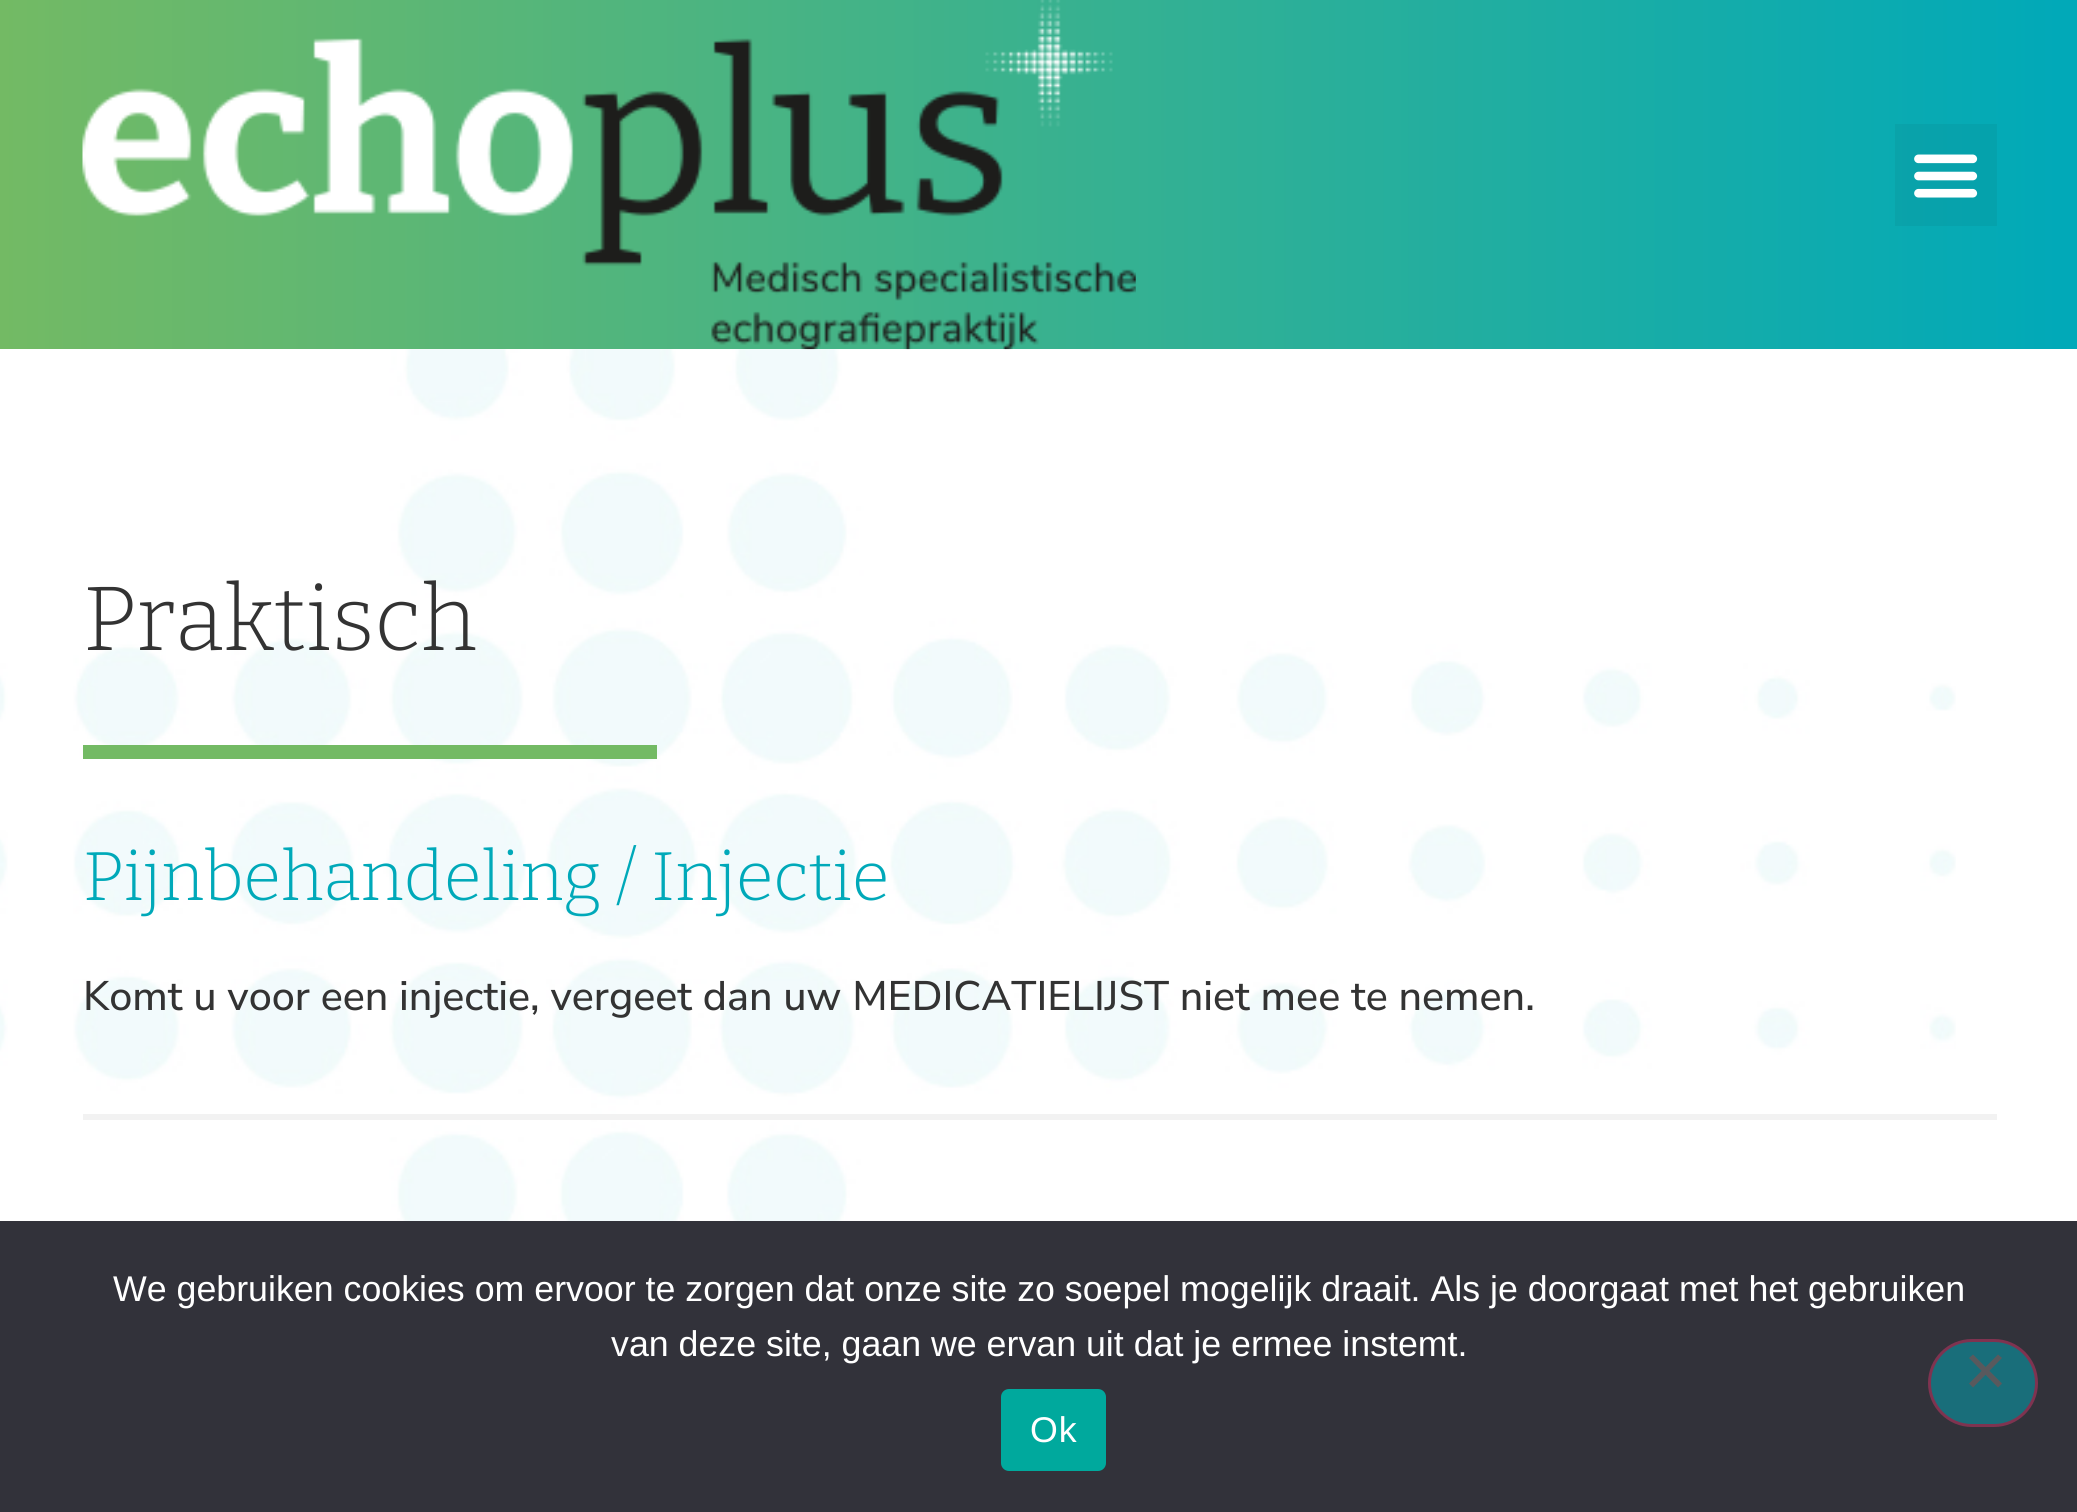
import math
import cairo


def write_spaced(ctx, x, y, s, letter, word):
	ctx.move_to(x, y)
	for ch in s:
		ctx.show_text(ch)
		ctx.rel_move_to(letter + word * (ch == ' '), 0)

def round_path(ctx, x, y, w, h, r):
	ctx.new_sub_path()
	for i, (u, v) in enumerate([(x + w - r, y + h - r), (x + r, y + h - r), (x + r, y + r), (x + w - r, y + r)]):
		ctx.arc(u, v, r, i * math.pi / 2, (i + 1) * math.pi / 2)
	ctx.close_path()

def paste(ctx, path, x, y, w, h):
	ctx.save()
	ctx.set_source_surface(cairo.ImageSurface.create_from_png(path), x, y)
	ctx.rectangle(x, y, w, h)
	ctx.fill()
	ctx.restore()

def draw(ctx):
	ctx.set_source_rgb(1, 1, 1)
	ctx.paint()
	gradient = cairo.LinearGradient(0, 175, 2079, 175)
	gradient.add_color_stop_rgba(0, 0.451, 0.729, 0.392, 1)
	gradient.add_color_stop_rgba(1, 0, 0.663, 0.725, 1)
	ctx.set_source(gradient)
	ctx.rectangle(0, 0, 2077, 349)
	ctx.fill()
	paste(ctx, 'media/1.png', 82, 0, 1054, 350)
	ctx.set_source_rgba(0, 0, 0, 0.05)
	ctx.rectangle(1895, 124, 102, 102)
	ctx.fill()
	paste(ctx, 'media/2.png', 1914, 154, 64, 44)
	paste(ctx, 'media/3.png', 0, 349, 1956, 872)
	ctx.select_font_face('Bitter Light')
	ctx.set_font_size(90.75)
	ctx.set_source_rgb(0.2, 0.2, 0.2)
	ctx.move_to(83, 650)
	ctx.show_text('Praktisch')
	ctx.set_source_rgb(0.451, 0.729, 0.392)
	ctx.rectangle(83, 745, 574, 14)
	ctx.fill()
	ctx.set_font_size(68.75)
	ctx.set_source_rgb(0, 0.663, 0.725)
	ctx.move_to(83, 900)
	ctx.show_text('Pijnbehandeling / Injectie')
	ctx.select_font_face('Nunito Sans Medium')
	ctx.set_font_size(41.25)
	ctx.set_source_rgb(0.2, 0.2, 0.2)
	ctx.move_to(83, 1010)
	ctx.show_text('Komt u voor een injectie, vergeet dan uw MEDICATIELIJST niet mee te nemen.')
	ctx.set_source_rgb(0.949, 0.949, 0.949)
	ctx.rectangle(83, 1114, 1914, 6)
	ctx.fill()
	ctx.set_source_rgb(0.196, 0.196, 0.227)
	ctx.rectangle(0, 1221, 2077, 291)
	ctx.fill()
	ctx.select_font_face('Liberation Sans')
	ctx.set_font_size(35.75)
	ctx.set_source_rgb(1, 1, 1)
	ctx.move_to(113, 1301)
	ctx.show_text('We gebruiken cookies om ervoor te zorgen dat onze site zo soepel mogelijk draait. Als je doorgaat met het gebruiken')
	ctx.move_to(611, 1356)
	ctx.show_text('van deze site, gaan we ervan uit dat je ermee instemt.')
	ctx.set_source_rgb(0, 0.663, 0.616)
	round_path(ctx, 1001, 1389, 105, 82, 8)
	ctx.fill()
	ctx.set_source_rgb(1, 1, 1)
	write_spaced(ctx, 1030, 1442, 'Ok', 1, 0)
	ctx.set_source_rgb(0.098, 0.431, 0.478)
	round_path(ctx, 1929.5, 1340.5, 107, 85, 42.5)
	ctx.fill_preserve()
	ctx.set_source_rgb(0.498, 0.2, 0.314)
	ctx.set_line_width(3)
	ctx.stroke()
	ctx.set_source_rgb(0.349, 0.349, 0.365)
	ctx.new_path()
	ctx.move_to(1998, 1354.5)
	ctx.line_to(2002, 1358)
	ctx.line_to(1973, 1387.5)
	ctx.line_to(1969, 1383.5)
	ctx.close_path()
	ctx.fill()
	ctx.new_path()
	ctx.move_to(1969, 1358)
	ctx.line_to(1973, 1354.5)
	ctx.line_to(2002, 1383.5)
	ctx.line_to(1998, 1387.5)
	ctx.close_path()
	ctx.fill()


surface = cairo.ImageSurface(cairo.FORMAT_RGB24, 2077, 1512)
ctx = cairo.Context(surface)
options = cairo.FontOptions()
options.set_hint_metrics(cairo.HINT_METRICS_OFF)
options.set_hint_style(cairo.HINT_STYLE_NONE)
ctx.set_font_options(options)
ctx.set_miter_limit(4)
draw(ctx)
surface.write_to_png('image.png')
